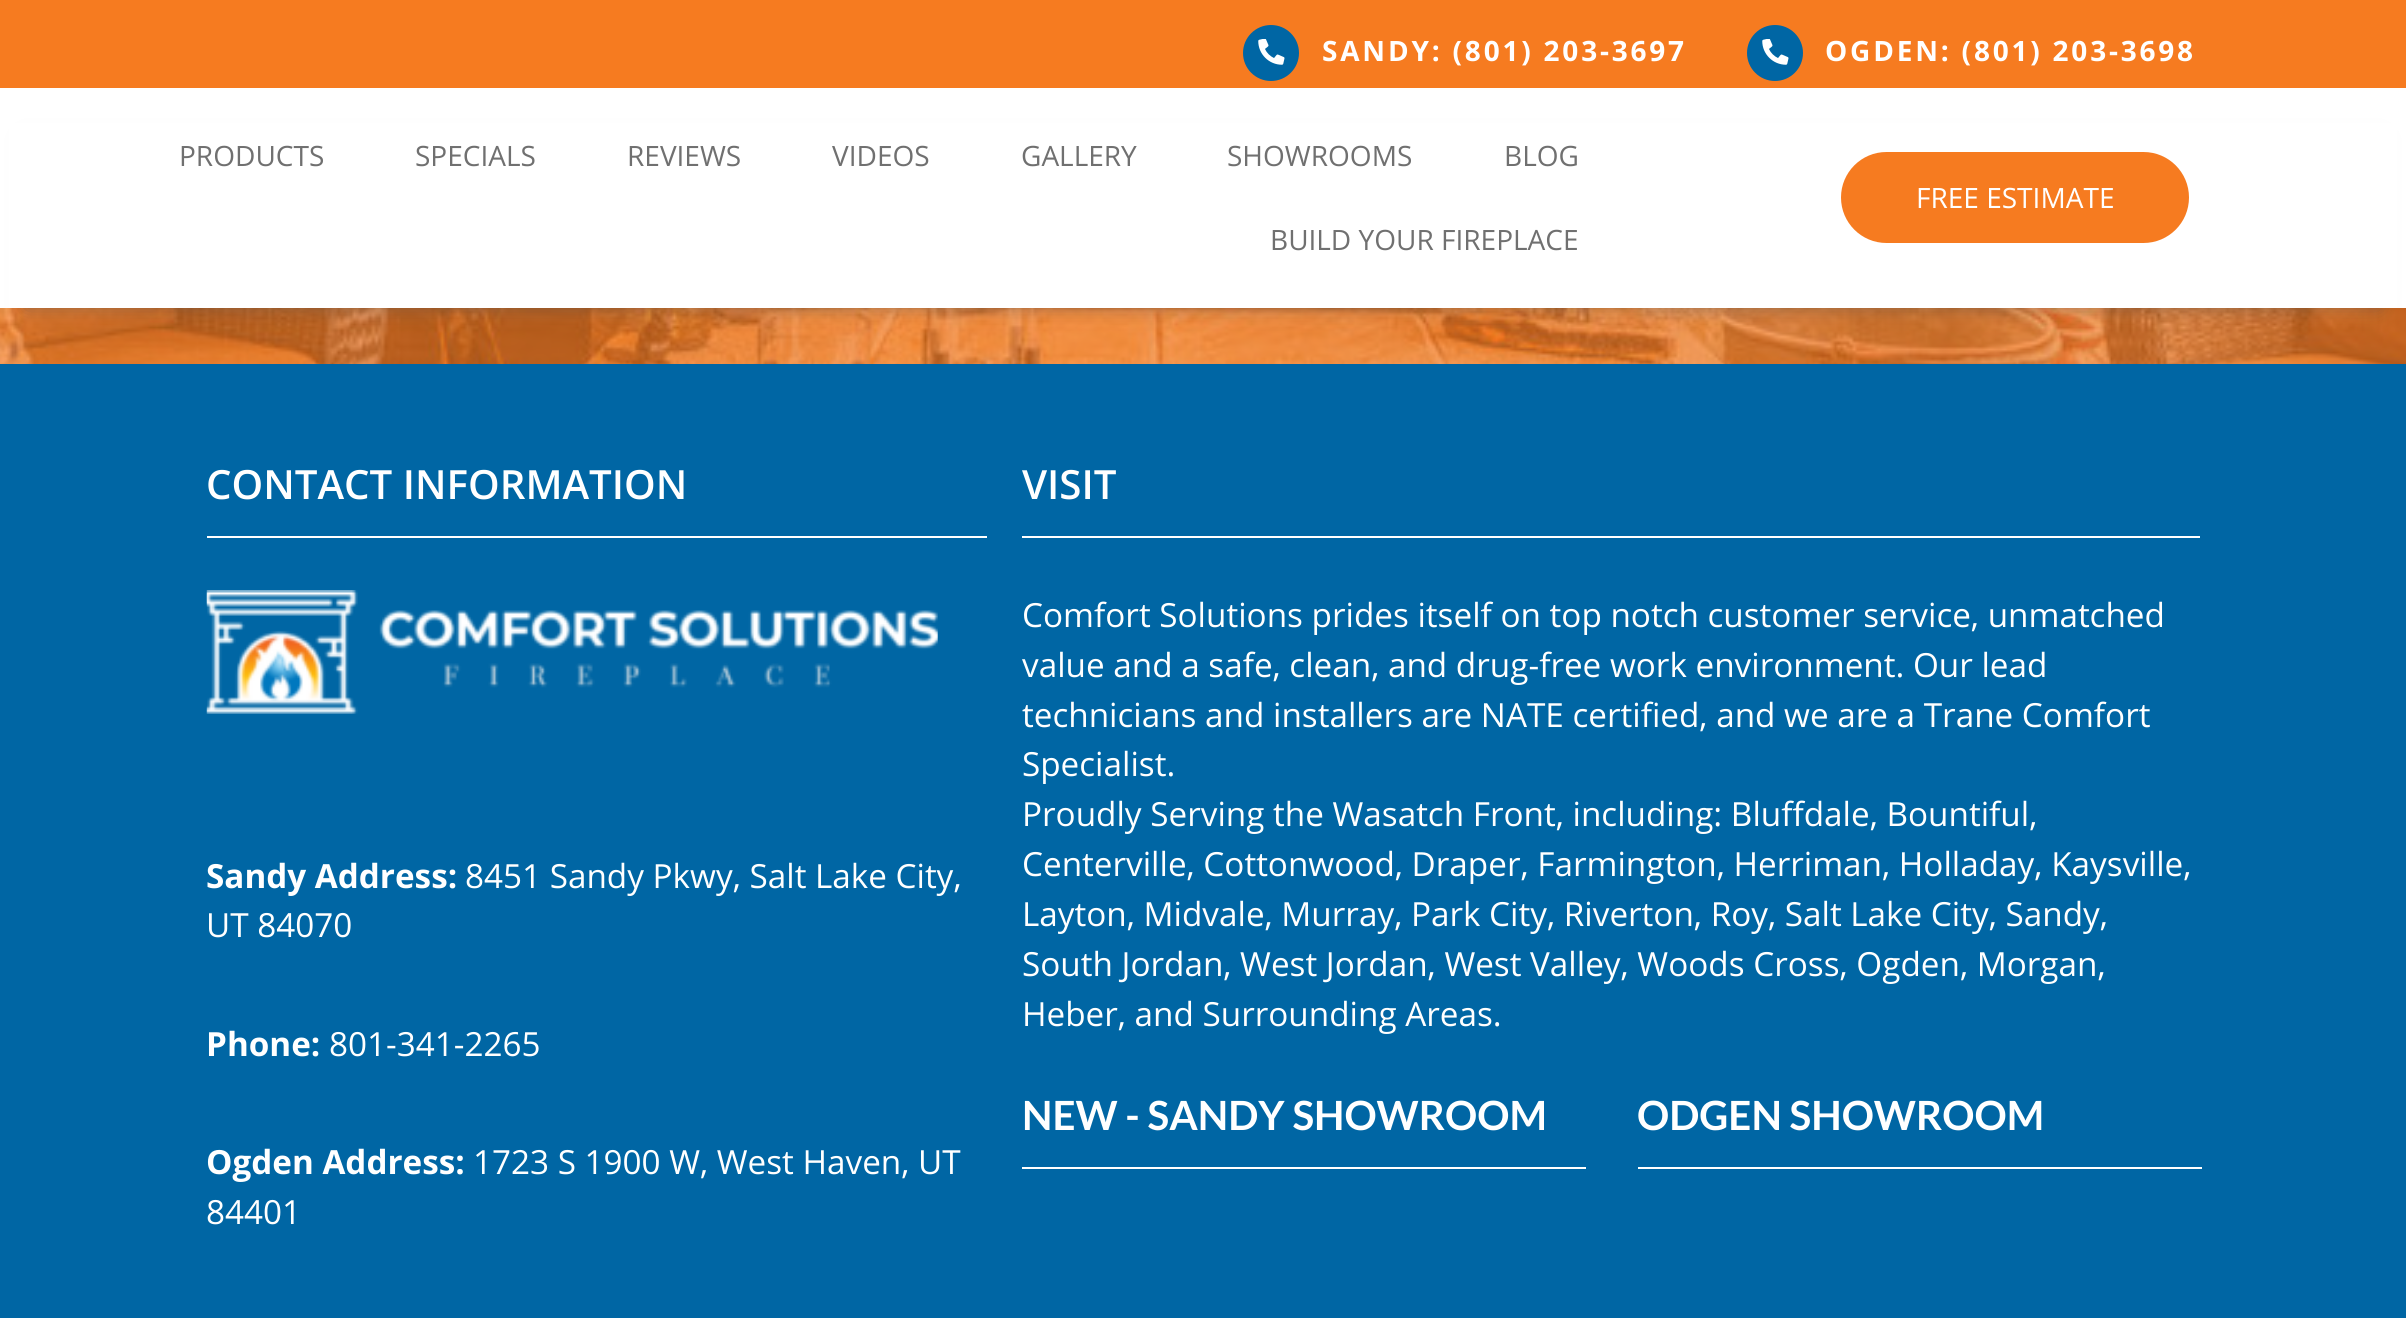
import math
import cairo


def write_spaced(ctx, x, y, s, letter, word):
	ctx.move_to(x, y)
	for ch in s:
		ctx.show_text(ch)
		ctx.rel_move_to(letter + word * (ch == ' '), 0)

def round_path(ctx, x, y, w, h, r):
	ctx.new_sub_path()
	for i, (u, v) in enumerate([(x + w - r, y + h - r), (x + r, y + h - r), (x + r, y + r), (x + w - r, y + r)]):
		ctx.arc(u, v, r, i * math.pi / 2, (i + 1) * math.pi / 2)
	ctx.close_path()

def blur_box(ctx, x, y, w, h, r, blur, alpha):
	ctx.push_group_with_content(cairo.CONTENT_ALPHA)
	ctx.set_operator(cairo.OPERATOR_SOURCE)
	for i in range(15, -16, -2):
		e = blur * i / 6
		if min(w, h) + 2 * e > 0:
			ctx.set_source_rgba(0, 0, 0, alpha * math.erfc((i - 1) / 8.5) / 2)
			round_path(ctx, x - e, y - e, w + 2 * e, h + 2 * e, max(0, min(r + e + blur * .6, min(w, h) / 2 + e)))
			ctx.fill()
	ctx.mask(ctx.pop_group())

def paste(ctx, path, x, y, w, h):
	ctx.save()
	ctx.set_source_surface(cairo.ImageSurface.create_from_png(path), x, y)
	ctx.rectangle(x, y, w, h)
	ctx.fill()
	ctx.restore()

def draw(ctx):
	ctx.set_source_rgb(1, 1, 1)
	ctx.paint()
	ctx.set_source_rgb(0.961, 0.482, 0.125)
	ctx.rectangle(0, 0, 2406, 88)
	ctx.fill()
	ctx.set_source_rgb(0, 0.4, 0.643)
	ctx.arc(1271, 53, 28, 0, 2 * math.pi)
	ctx.fill()
	paste(ctx, 'media/1.png', 1258, 39, 27, 26)
	ctx.select_font_face('Open Sans', cairo.FONT_SLANT_NORMAL, cairo.FONT_WEIGHT_BOLD)
	ctx.set_font_size(28)
	ctx.set_source_rgb(1, 1, 1)
	write_spaced(ctx, 1322, 61, 'SANDY: (801) 203-3697', 2.8, 0)
	ctx.set_source_rgb(0, 0.4, 0.643)
	ctx.new_path()
	ctx.arc(1775, 53, 28, 0, 2 * math.pi)
	ctx.fill()
	paste(ctx, 'media/1.png', 1762, 39, 27, 26)
	ctx.set_source_rgb(1, 1, 1)
	write_spaced(ctx, 1825, 61, 'OGDEN: (801) 203-3698', 2.8, 0)
	paste(ctx, 'media/2.png', 0, 308, 2406, 56)
	ctx.set_source_rgb(0.333, 0.333, 0.333)
	blur_box(ctx, 26, 140, 2354, 168, 0, 9, 0.5)
	ctx.set_source_rgb(1, 1, 1)
	ctx.rectangle(9, 123, 2388, 185)
	ctx.fill()
	ctx.select_font_face('Open Sans')
	ctx.set_source_rgb(0.439, 0.439, 0.439)
	for x, y, s in [
		(179, 166, 'PRODUCTS'),
		(415, 166, 'SPECIALS'),
		(627, 166, 'REVIEWS'),
		(832, 166, 'VIDEOS'),
		(1021, 166, 'GALLERY'),
		(1227, 166, 'SHOWROOMS'),
		(1504, 166, 'BLOG'),
		(1270, 250, 'BUILD YOUR FIREPLACE'),
	]:
		ctx.move_to(x, y)
		ctx.show_text(s)
	ctx.set_source_rgb(0.961, 0.482, 0.125)
	round_path(ctx, 1841, 152, 348, 91, 45.5)
	ctx.fill()
	ctx.set_source_rgb(1, 1, 1)
	ctx.move_to(1916, 208)
	ctx.show_text('FREE ESTIMATE')
	ctx.set_source_rgb(0, 0.4, 0.643)
	ctx.rectangle(0, 364, 2406, 954)
	ctx.fill()
	ctx.set_source_rgb(1, 1, 1)
	ctx.rectangle(207, 536, 780, 2)
	ctx.fill()
	ctx.select_font_face('Open Sans SemiBold')
	ctx.set_font_size(40.25)
	ctx.move_to(206, 499)
	ctx.show_text('CONTACT INFORMATION')
	paste(ctx, 'media/3.png', 206, 590, 732, 124)
	ctx.select_font_face('Open Sans', cairo.FONT_SLANT_NORMAL, cairo.FONT_WEIGHT_BOLD)
	ctx.set_font_size(33.25)
	ctx.move_to(206, 888)
	ctx.show_text('Sandy Address:')
	ctx.select_font_face('Open Sans')
	ctx.move_to(465, 888)
	ctx.show_text('8451 Sandy Pkwy, Salt Lake City,')
	ctx.move_to(206, 937)
	ctx.show_text('UT 84070')
	ctx.select_font_face('Open Sans', cairo.FONT_SLANT_NORMAL, cairo.FONT_WEIGHT_BOLD)
	ctx.move_to(206, 1056)
	ctx.show_text('Phone:')
	ctx.select_font_face('Open Sans')
	ctx.move_to(329, 1056)
	ctx.show_text('801-341-2265')
	ctx.select_font_face('Open Sans', cairo.FONT_SLANT_NORMAL, cairo.FONT_WEIGHT_BOLD)
	ctx.move_to(206, 1174)
	ctx.show_text('Ogden Address:')
	ctx.select_font_face('Open Sans')
	ctx.move_to(473, 1174)
	ctx.show_text('1723 S 1900 W, West Haven, UT')
	ctx.move_to(206, 1224)
	ctx.show_text('84401')
	ctx.rectangle(1022, 536, 1178, 2)
	ctx.fill()
	ctx.select_font_face('Open Sans SemiBold')
	ctx.set_font_size(40.25)
	ctx.move_to(1022, 499)
	ctx.show_text('VISIT')
	ctx.select_font_face('Open Sans')
	ctx.set_font_size(33.25)
	for x, y, s in [
		(1022, 627, 'Comfort Solutions prides itself on top notch customer service, unmatched'),
		(1022, 677, 'value and a safe, clean, and drug-free work environment. Our lead'),
		(1022, 727, 'technicians and installers are NATE certified, and we are a Trane Comfort'),
		(1022, 776, 'Specialist.'),
		(1022, 826, 'Proudly Serving the Wasatch Front, including: Bluffdale, Bountiful,'),
		(1022, 876, 'Centerville, Cottonwood, Draper, Farmington, Herriman, Holladay, Kaysville,'),
		(1022, 926, 'Layton, Midvale, Murray, Park City, Riverton, Roy, Salt Lake City, Sandy,'),
		(1022, 976, 'South Jordan, West Jordan, West Valley, Woods Cross, Ogden, Morgan,'),
		(1022, 1026, 'Heber, and Surrounding Areas.'),
	]:
		ctx.move_to(x, y)
		ctx.show_text(s)
	ctx.rectangle(1022, 1167, 564, 2)
	ctx.fill()
	ctx.select_font_face('Lato', cairo.FONT_SLANT_NORMAL, cairo.FONT_WEIGHT_BOLD)
	ctx.set_font_size(40.25)
	ctx.move_to(1022, 1130)
	ctx.show_text('NEW - SANDY SHOWROOM')
	ctx.rectangle(1638, 1167, 564, 2)
	ctx.fill()
	ctx.move_to(1637, 1130)
	ctx.show_text('ODGEN SHOWROOM')


surface = cairo.ImageSurface(cairo.FORMAT_RGB24, 2406, 1318)
ctx = cairo.Context(surface)
options = cairo.FontOptions()
options.set_hint_metrics(cairo.HINT_METRICS_OFF)
options.set_hint_style(cairo.HINT_STYLE_NONE)
ctx.set_font_options(options)
ctx.set_miter_limit(4)
draw(ctx)
surface.write_to_png('image.png')
